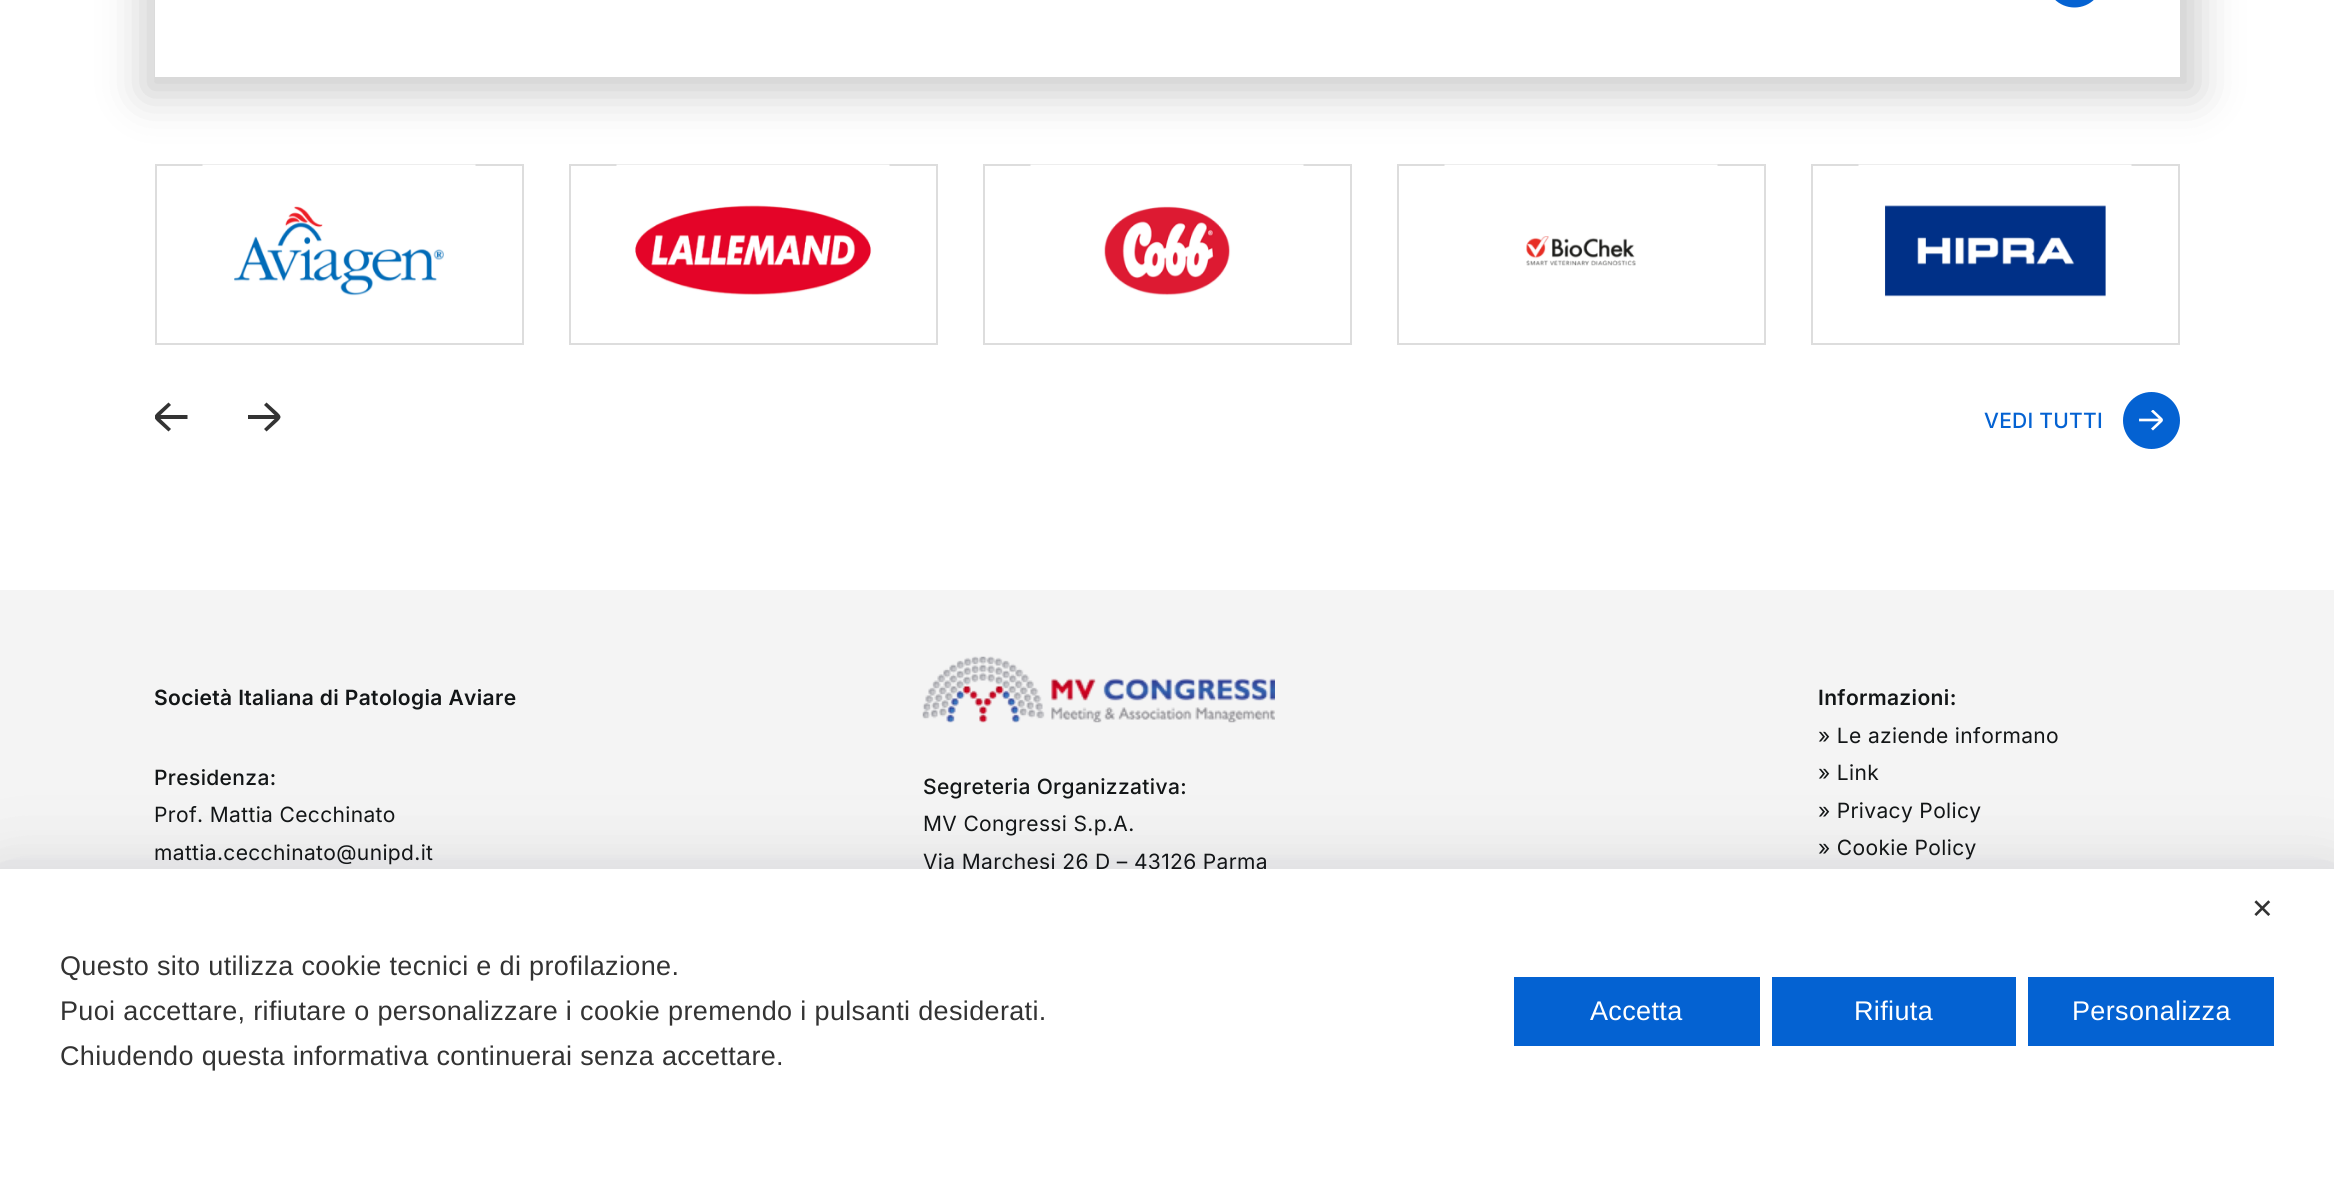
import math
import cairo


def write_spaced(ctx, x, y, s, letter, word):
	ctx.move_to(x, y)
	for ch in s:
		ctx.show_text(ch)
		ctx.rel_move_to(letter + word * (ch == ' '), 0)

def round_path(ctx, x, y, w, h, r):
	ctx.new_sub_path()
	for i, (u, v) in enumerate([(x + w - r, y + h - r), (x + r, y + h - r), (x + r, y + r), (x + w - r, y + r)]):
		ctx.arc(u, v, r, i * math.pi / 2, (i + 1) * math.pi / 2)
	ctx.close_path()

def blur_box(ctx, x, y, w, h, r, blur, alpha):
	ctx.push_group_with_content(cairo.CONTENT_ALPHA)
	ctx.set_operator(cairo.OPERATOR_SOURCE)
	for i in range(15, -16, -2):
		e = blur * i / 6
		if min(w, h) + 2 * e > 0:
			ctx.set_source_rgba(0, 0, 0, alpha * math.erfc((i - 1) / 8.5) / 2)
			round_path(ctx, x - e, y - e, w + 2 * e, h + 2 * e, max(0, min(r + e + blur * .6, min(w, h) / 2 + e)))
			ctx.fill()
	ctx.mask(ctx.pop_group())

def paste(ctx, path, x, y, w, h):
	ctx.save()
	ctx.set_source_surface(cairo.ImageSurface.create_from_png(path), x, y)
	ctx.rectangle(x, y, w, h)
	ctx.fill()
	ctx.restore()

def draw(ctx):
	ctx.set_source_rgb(1, 1, 1)
	ctx.paint()
	ctx.save()
	ctx.set_fill_rule(cairo.FILL_RULE_EVEN_ODD)
	ctx.new_path()
	ctx.move_to(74, 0)
	ctx.line_to(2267, 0)
	ctx.line_to(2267, 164)
	ctx.line_to(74, 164)
	ctx.close_path()
	ctx.move_to(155, -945)
	ctx.line_to(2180, -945)
	ctx.line_to(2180, 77)
	ctx.line_to(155, 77)
	ctx.close_path()
	ctx.clip()
	ctx.set_source_rgb(0, 0, 0)
	blur_box(ctx, 143, -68, 2055, 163, 0, 22.5, 0.2)
	ctx.restore()
	paste(ctx, 'media/1.png', 2055, 0, 39, 8)
	ctx.rectangle(156, 165, 367, 179)
	ctx.set_source_rgb(0.867, 0.867, 0.867)
	ctx.stroke()
	paste(ctx, 'media/2.png', 202, 164, 274, 132)
	ctx.rectangle(570, 165, 367, 179)
	ctx.stroke()
	paste(ctx, 'media/3.png', 616, 164, 274, 131)
	ctx.rectangle(984, 165, 367, 179)
	ctx.stroke()
	paste(ctx, 'media/4.png', 1030, 164, 274, 132)
	ctx.rectangle(1398, 165, 367, 179)
	ctx.stroke()
	paste(ctx, 'media/5.png', 1444, 164, 274, 102)
	ctx.rectangle(1812, 165, 367, 179)
	ctx.stroke()
	paste(ctx, 'media/6.png', 1858, 164, 274, 133)
	ctx.save()
	ctx.rectangle(155, 399, 33, 38)
	ctx.clip()
	ctx.set_source_rgb(0.2, 0.2, 0.2)
	ctx.new_path()
	ctx.move_to(171, 405)
	ctx.line_to(168.5, 402.5)
	ctx.line_to(157.5, 412.5)
	ctx.curve_to(153.5, 416.5, 153.5, 417.5, 157.5, 421.5)
	ctx.line_to(168.5, 431.5)
	ctx.line_to(171, 429)
	ctx.line_to(160.5, 419)
	ctx.line_to(187.5, 419)
	ctx.line_to(187.5, 415)
	ctx.line_to(160.5, 415)
	ctx.close_path()
	ctx.fill()
	ctx.restore()
	ctx.save()
	ctx.rectangle(248, 399, 33, 38)
	ctx.clip()
	ctx.set_source_rgb(0.2, 0.2, 0.2)
	ctx.new_path()
	ctx.move_to(264, 405)
	ctx.line_to(266.5, 402.5)
	ctx.line_to(277.5, 412.5)
	ctx.curve_to(281.5, 416.5, 281.5, 417.5, 277.5, 421.5)
	ctx.line_to(266.5, 431.5)
	ctx.line_to(264, 429)
	ctx.line_to(274.5, 419)
	ctx.line_to(247.5, 419)
	ctx.line_to(247.5, 415)
	ctx.line_to(274.5, 415)
	ctx.close_path()
	ctx.fill()
	ctx.restore()
	ctx.select_font_face('Inter Medium')
	ctx.set_font_size(21)
	ctx.set_source_rgb(0.016, 0.384, 0.824)
	write_spaced(ctx, 1984, 428, 'VEDI TUTTI', 0.25, 0)
	ctx.new_path()
	ctx.arc(2151.5, 420.5, 28.5, 0, 2 * math.pi)
	ctx.fill()
	paste(ctx, 'media/7.png', 2139, 410, 24, 21)
	ctx.set_source_rgb(0.957, 0.957, 0.957)
	ctx.rectangle(0, 590, 2334, 279)
	ctx.fill()
	ctx.select_font_face('Inter SemiBold')
	ctx.set_source_rgb(0.078, 0.086, 0.09)
	write_spaced(ctx, 154, 705, 'Società Italiana di Patologia Aviare', 0.35, 0)
	ctx.select_font_face('Inter Medium')
	write_spaced(ctx, 154, 785, 'Presidenza:', 0.35, 0)
	ctx.select_font_face('Inter')
	write_spaced(ctx, 154, 822, 'Prof. Mattia Cecchinato', 0.35, 0)
	write_spaced(ctx, 154, 860, 'mattia.cecchinato@unipd.it', 0.35, 0)
	paste(ctx, 'media/8.png', 922, 656, 353, 67)
	ctx.select_font_face('Inter Medium')
	write_spaced(ctx, 923, 794, 'Segreteria Organizzativa:', 0.35, 0)
	ctx.select_font_face('Inter')
	write_spaced(ctx, 923, 831, 'MV Congressi S.p.A.', 0.35, 0)
	write_spaced(ctx, 923, 869, 'Via Marchesi 26 D – 43126 Parma', 0.35, 0)
	ctx.select_font_face('Inter SemiBold')
	write_spaced(ctx, 1818, 705, 'Informazioni:', 0.35, 0)
	ctx.select_font_face('Inter')
	for x, y, s in [
		(1818, 743, '» Le aziende informano'),
		(1818, 780, '» Link'),
		(1818, 818, '» Privacy Policy'),
		(1818, 855, '» Cookie Policy'),
	]:
		write_spaced(ctx, x, y, s, 0.35, 0)
	ctx.set_source_rgb(0.067, 0.067, 0.102)
	blur_box(ctx, 0, 905, 2334, 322, 0, 60, 0.1)
	blur_box(ctx, 0, 893, 2334, 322, 0, 42, 0.1)
	blur_box(ctx, 0, 881, 2334, 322, 0, 18, 0.1)
	ctx.set_source_rgb(1, 1, 1)
	ctx.rectangle(0, 869, 2334, 321)
	ctx.fill()
	ctx.select_font_face('DejaVu Sans')
	ctx.set_font_size(27)
	ctx.set_source_rgb(0.2, 0.2, 0.2)
	write_spaced(ctx, 2251, 918, '✕', 0.35, 0)
	ctx.select_font_face('Liberation Sans')
	for x, y, s in [
		(60, 975, 'Questo sito utilizza cookie tecnici e di profilazione.'),
		(60, 1020, 'Puoi accettare, rifiutare o personalizzare i cookie premendo i pulsanti desiderati.'),
		(60, 1065, 'Chiudendo questa informativa continuerai senza accettare.'),
	]:
		write_spaced(ctx, x, y, s, 0.35, 0)
	ctx.set_source_rgb(0.016, 0.384, 0.824)
	ctx.rectangle(1514, 977, 246, 69)
	ctx.fill()
	ctx.set_source_rgb(1, 1, 1)
	write_spaced(ctx, 1590, 1020, 'Accetta', 0.35, 0)
	ctx.set_source_rgb(0.016, 0.384, 0.824)
	ctx.rectangle(1772, 977, 244, 69)
	ctx.fill()
	ctx.set_source_rgb(1, 1, 1)
	write_spaced(ctx, 1854, 1020, 'Rifiuta', 0.35, 0)
	ctx.set_source_rgb(0.016, 0.384, 0.824)
	ctx.rectangle(2028, 977, 246, 69)
	ctx.fill()
	ctx.set_source_rgb(1, 1, 1)
	write_spaced(ctx, 2072, 1020, 'Personalizza', 0.35, 0)


surface = cairo.ImageSurface(cairo.FORMAT_RGB24, 2334, 1190)
ctx = cairo.Context(surface)
options = cairo.FontOptions()
options.set_hint_metrics(cairo.HINT_METRICS_OFF)
options.set_hint_style(cairo.HINT_STYLE_NONE)
ctx.set_font_options(options)
ctx.set_miter_limit(4)
draw(ctx)
surface.write_to_png('image.png')
